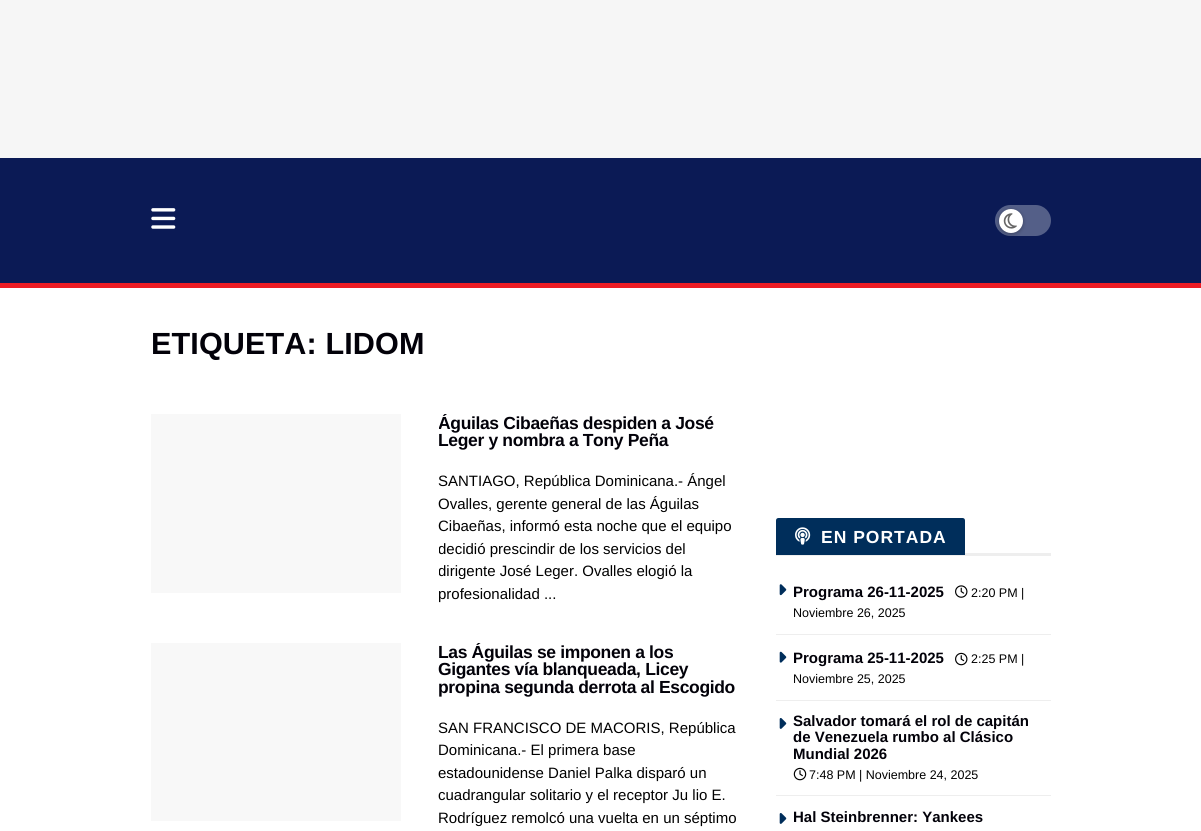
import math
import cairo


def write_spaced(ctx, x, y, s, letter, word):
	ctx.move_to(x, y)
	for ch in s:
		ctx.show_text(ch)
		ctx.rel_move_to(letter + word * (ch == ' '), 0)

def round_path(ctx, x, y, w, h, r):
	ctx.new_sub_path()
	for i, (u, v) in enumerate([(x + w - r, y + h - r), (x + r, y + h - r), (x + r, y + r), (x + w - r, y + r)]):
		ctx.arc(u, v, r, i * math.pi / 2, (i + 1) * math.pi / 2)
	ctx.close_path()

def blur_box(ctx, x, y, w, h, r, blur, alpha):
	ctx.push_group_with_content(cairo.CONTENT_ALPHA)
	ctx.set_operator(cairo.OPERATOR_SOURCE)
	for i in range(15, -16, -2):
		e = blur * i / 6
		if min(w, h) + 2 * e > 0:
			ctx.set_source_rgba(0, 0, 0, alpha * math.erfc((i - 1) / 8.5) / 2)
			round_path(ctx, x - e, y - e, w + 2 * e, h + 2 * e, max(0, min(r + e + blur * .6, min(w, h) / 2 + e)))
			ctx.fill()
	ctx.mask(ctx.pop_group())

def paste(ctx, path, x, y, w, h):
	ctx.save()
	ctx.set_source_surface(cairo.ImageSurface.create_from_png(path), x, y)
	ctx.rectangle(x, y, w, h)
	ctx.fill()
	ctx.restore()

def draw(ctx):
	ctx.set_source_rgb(1, 1, 1)
	ctx.paint()
	ctx.set_source_rgb(0.961, 0.961, 0.961)
	ctx.rectangle(0, 0, 1201, 158)
	ctx.fill()
	ctx.set_source_rgb(0.929, 0.11, 0.141)
	ctx.rectangle(0, 283, 1201, 5)
	ctx.fill()
	ctx.set_source_rgb(0.043, 0.102, 0.333)
	ctx.rectangle(0, 158, 1201, 125)
	ctx.fill()
	paste(ctx, 'media/1.png', 151, 208, 25, 21)
	ctx.set_source_rgb(0.329, 0.373, 0.533)
	round_path(ctx, 995, 205, 56, 31, 15.5)
	ctx.fill()
	ctx.set_source_rgb(0, 0, 0)
	blur_box(ctx, 999, 210, 24, 24, 12, 2, 0.3)
	ctx.set_source_rgb(1, 1, 1)
	ctx.arc(1011, 221, 12, 0, 2 * math.pi)
	ctx.fill()
	paste(ctx, 'media/2.png', 1003, 213, 14, 16)
	ctx.select_font_face('Liberation Sans', cairo.FONT_SLANT_NORMAL, cairo.FONT_WEIGHT_BOLD)
	ctx.set_font_size(30.6)
	ctx.set_source_rgb(0.008, 0.004, 0.039)
	write_spaced(ctx, 151, 354, 'ETIQUETA: LIDOM', 0.1, 0)
	ctx.set_source_rgb(0.969, 0.969, 0.969)
	ctx.rectangle(151, 414, 250, 179)
	ctx.fill()
	ctx.save()
	ctx.rectangle(439, 414, 300, 191)
	ctx.clip()
	ctx.set_font_size(17.5)
	ctx.set_source_rgb(0.008, 0.004, 0.039)
	write_spaced(ctx, 438, 429, 'Águilas Cibaeñas despiden a José', -0.35, 0)
	ctx.restore()
	ctx.set_font_size(17.5)
	ctx.set_source_rgb(0.008, 0.004, 0.039)
	write_spaced(ctx, 438, 446, 'Leger y nombra a Tony Peña', -0.35, 0)
	ctx.select_font_face('Liberation Sans')
	ctx.set_font_size(15)
	ctx.set_source_rgb(0, 0, 0)
	for x, y, s in [
		(438, 486, 'SANTIAGO, República Dominicana.- Ángel'),
		(438, 509, 'Ovalles, gerente general de las Águilas'),
		(438, 531, 'Cibaeñas, informó esta noche que el equipo'),
	]:
		ctx.move_to(x, y)
		ctx.show_text(s)
	ctx.save()
	ctx.rectangle(439, 414, 300, 191)
	ctx.clip()
	ctx.move_to(438, 554)
	ctx.show_text('decidió prescindir de los servicios del')
	ctx.move_to(438, 576)
	ctx.show_text('dirigente José Leger. Ovalles elogió la')
	ctx.restore()
	ctx.move_to(438, 599)
	ctx.show_text('profesionalidad ...')
	ctx.set_source_rgb(0.969, 0.969, 0.969)
	ctx.rectangle(151, 643, 250, 178)
	ctx.fill()
	ctx.save()
	ctx.rectangle(439, 643, 300, 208)
	ctx.clip()
	ctx.select_font_face('Liberation Sans', cairo.FONT_SLANT_NORMAL, cairo.FONT_WEIGHT_BOLD)
	ctx.set_font_size(17.5)
	ctx.set_source_rgb(0.008, 0.004, 0.039)
	write_spaced(ctx, 438, 658, 'Las Águilas se imponen a los', -0.35, 0)
	ctx.restore()
	ctx.select_font_face('Liberation Sans', cairo.FONT_SLANT_NORMAL, cairo.FONT_WEIGHT_BOLD)
	ctx.set_font_size(17.5)
	ctx.set_source_rgb(0.008, 0.004, 0.039)
	write_spaced(ctx, 438, 675, 'Gigantes vía blanqueada, Licey', -0.35, 0)
	write_spaced(ctx, 438, 693, 'propina segunda derrota al Escogido', -0.35, 0)
	ctx.select_font_face('Liberation Sans')
	ctx.set_font_size(15)
	ctx.set_source_rgb(0, 0, 0)
	for x, y, s in [
		(438, 733, 'SAN FRANCISCO DE MACORIS, República'),
		(438, 755, 'Dominicana.- El primera base'),
		(438, 778, 'estadounidense Daniel Palka disparó un'),
		(438, 800, 'cuadrangular solitario y el receptor Ju lio E.'),
		(438, 823, 'Rodríguez remolcó una vuelta en un séptimo'),
	]:
		ctx.move_to(x, y)
		ctx.show_text(s)
	ctx.set_source_rgb(0.933, 0.933, 0.933)
	ctx.rectangle(776, 553, 275, 3)
	ctx.fill()
	ctx.set_source_rgb(0, 0.18, 0.357)
	ctx.new_path()
	ctx.move_to(778.5, 518)
	ctx.line_to(962.5, 518)
	ctx.curve_to(964, 518, 965, 519, 965, 520.5)
	ctx.line_to(965, 555)
	ctx.line_to(776, 555)
	ctx.line_to(776, 520.5)
	ctx.curve_to(776, 519, 777, 518, 778.5, 518)
	ctx.close_path()
	ctx.fill()
	paste(ctx, 'media/3.png', 795, 527, 16, 18)
	ctx.select_font_face('Liberation Sans', cairo.FONT_SLANT_NORMAL, cairo.FONT_WEIGHT_BOLD)
	ctx.set_font_size(17.5)
	ctx.set_source_rgb(1, 1, 1)
	write_spaced(ctx, 821, 543, 'EN PORTADA', 1, 0)
	ctx.set_source_rgb(0.933, 0.933, 0.933)
	ctx.rectangle(776, 634, 275, 1)
	ctx.fill()
	paste(ctx, 'media/4.png', 779, 584, 8, 12)
	ctx.set_font_size(15)
	ctx.set_source_rgb(0.008, 0.004, 0.039)
	ctx.move_to(793, 597)
	ctx.show_text('Programa 26-11-2025')
	paste(ctx, 'media/5.png', 955, 585, 13, 13)
	ctx.select_font_face('Liberation Sans')
	ctx.set_font_size(12.5)
	ctx.set_source_rgb(0, 0, 0)
	ctx.move_to(971, 597)
	ctx.show_text('2:20 PM |')
	ctx.move_to(793, 617)
	ctx.show_text('Noviembre 26, 2025')
	ctx.set_source_rgb(0.933, 0.933, 0.933)
	ctx.rectangle(776, 700, 275, 1)
	ctx.fill()
	paste(ctx, 'media/6.png', 779, 651, 8, 12)
	ctx.select_font_face('Liberation Sans', cairo.FONT_SLANT_NORMAL, cairo.FONT_WEIGHT_BOLD)
	ctx.set_font_size(15)
	ctx.set_source_rgb(0.008, 0.004, 0.039)
	ctx.move_to(793, 663)
	ctx.show_text('Programa 25-11-2025')
	paste(ctx, 'media/7.png', 955, 652, 13, 14)
	ctx.select_font_face('Liberation Sans')
	ctx.set_font_size(12.5)
	ctx.set_source_rgb(0, 0, 0)
	ctx.move_to(971, 663)
	ctx.show_text('2:25 PM |')
	ctx.move_to(793, 683)
	ctx.show_text('Noviembre 25, 2025')
	ctx.set_source_rgb(0.933, 0.933, 0.933)
	ctx.rectangle(776, 795, 275, 1)
	ctx.fill()
	paste(ctx, 'media/8.png', 779, 718, 8, 11)
	ctx.select_font_face('Liberation Sans', cairo.FONT_SLANT_NORMAL, cairo.FONT_WEIGHT_BOLD)
	ctx.set_font_size(15)
	ctx.set_source_rgb(0.008, 0.004, 0.039)
	for x, y, s in [
		(793, 726, 'Salvador tomará el rol de capitán'),
		(793, 742, 'de Venezuela rumbo al Clásico'),
		(793, 759, 'Mundial 2026'),
	]:
		ctx.move_to(x, y)
		ctx.show_text(s)
	paste(ctx, 'media/9.png', 793, 767, 14, 14)
	ctx.select_font_face('Liberation Sans')
	ctx.set_font_size(12.5)
	ctx.set_source_rgb(0, 0, 0)
	ctx.move_to(809, 779)
	ctx.show_text('7:48 PM | Noviembre 24, 2025')
	paste(ctx, 'media/8.png', 779, 813, 8, 11)
	ctx.select_font_face('Liberation Sans', cairo.FONT_SLANT_NORMAL, cairo.FONT_WEIGHT_BOLD)
	ctx.set_font_size(15)
	ctx.set_source_rgb(0.008, 0.004, 0.039)
	ctx.move_to(793, 822)
	ctx.show_text('Hal Steinbrenner: Yankees')


surface = cairo.ImageSurface(cairo.FORMAT_RGB24, 1201, 831)
ctx = cairo.Context(surface)
options = cairo.FontOptions()
options.set_hint_metrics(cairo.HINT_METRICS_OFF)
options.set_hint_style(cairo.HINT_STYLE_NONE)
ctx.set_font_options(options)
ctx.set_miter_limit(4)
draw(ctx)
surface.write_to_png('image.png')
